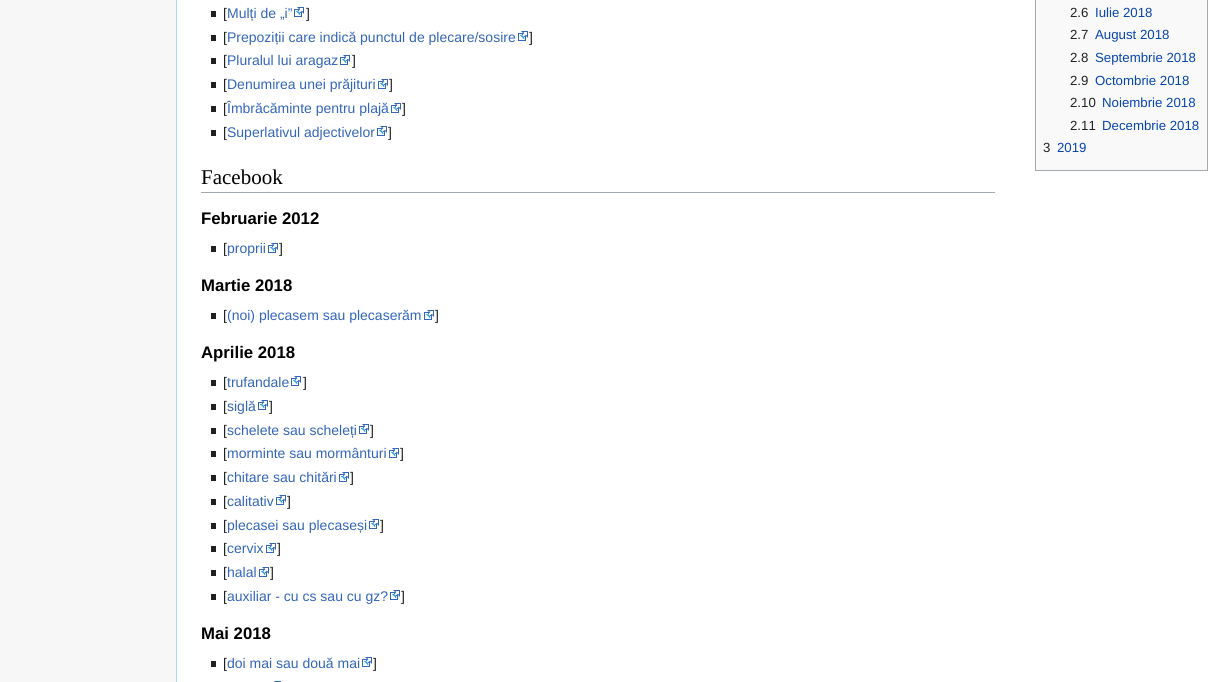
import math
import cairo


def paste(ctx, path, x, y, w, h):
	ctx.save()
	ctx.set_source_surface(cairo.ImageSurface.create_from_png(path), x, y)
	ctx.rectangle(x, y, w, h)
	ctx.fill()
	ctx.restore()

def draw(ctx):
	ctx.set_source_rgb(0.965, 0.965, 0.965)
	ctx.paint()
	ctx.set_source_rgb(1, 1, 1)
	ctx.rectangle(177, 0, 1055, 682)
	ctx.fill()
	ctx.set_source_rgb(0.655, 0.843, 0.976)
	ctx.rectangle(176, 0, 1, 682)
	ctx.fill()
	ctx.set_source_rgb(0.125, 0.129, 0.133)
	ctx.rectangle(211, 11, 5, 6)
	ctx.fill()
	ctx.select_font_face('Liberation Sans')
	ctx.set_font_size(14)
	ctx.move_to(223, 18)
	ctx.show_text('[')
	ctx.set_source_rgb(0.2, 0.4, 0.733)
	ctx.move_to(227, 18)
	ctx.show_text('Mulți de „i”')
	paste(ctx, 'media/1.png', 294, 7, 10, 10)
	ctx.set_source_rgb(0.125, 0.129, 0.133)
	ctx.move_to(306, 18)
	ctx.show_text(']')
	ctx.rectangle(211, 35, 5, 6)
	ctx.fill()
	ctx.move_to(223, 42)
	ctx.show_text('[')
	ctx.set_source_rgb(0.2, 0.4, 0.733)
	ctx.move_to(227, 42)
	ctx.show_text('Prepoziții care indică punctul de plecare/sosire')
	paste(ctx, 'media/1.png', 518, 31, 10, 10)
	ctx.set_source_rgb(0.125, 0.129, 0.133)
	ctx.move_to(529, 42)
	ctx.show_text(']')
	ctx.rectangle(211, 58, 5, 6)
	ctx.fill()
	ctx.move_to(223, 65)
	ctx.show_text('[')
	ctx.set_source_rgb(0.2, 0.4, 0.733)
	ctx.move_to(227, 65)
	ctx.show_text('Pluralul lui aragaz')
	paste(ctx, 'media/1.png', 340, 55, 10, 10)
	ctx.set_source_rgb(0.125, 0.129, 0.133)
	ctx.move_to(352, 65)
	ctx.show_text(']')
	ctx.rectangle(211, 82, 5, 6)
	ctx.fill()
	ctx.move_to(223, 89)
	ctx.show_text('[')
	ctx.set_source_rgb(0.2, 0.4, 0.733)
	ctx.move_to(227, 89)
	ctx.show_text('Denumirea unei prăjituri')
	paste(ctx, 'media/1.png', 378, 79, 10, 10)
	ctx.set_source_rgb(0.125, 0.129, 0.133)
	ctx.move_to(389, 89)
	ctx.show_text(']')
	ctx.rectangle(211, 106, 5, 6)
	ctx.fill()
	ctx.move_to(223, 113)
	ctx.show_text('[')
	ctx.set_source_rgb(0.2, 0.4, 0.733)
	ctx.move_to(227, 113)
	ctx.show_text('Îmbrăcăminte pentru plajă')
	paste(ctx, 'media/1.png', 391, 103, 10, 10)
	ctx.set_source_rgb(0.125, 0.129, 0.133)
	ctx.move_to(402, 113)
	ctx.show_text(']')
	ctx.rectangle(211, 130, 5, 6)
	ctx.fill()
	ctx.move_to(223, 137)
	ctx.show_text('[')
	ctx.set_source_rgb(0.2, 0.4, 0.733)
	ctx.move_to(227, 137)
	ctx.show_text('Superlativul adjectivelor')
	paste(ctx, 'media/1.png', 377, 126, 10, 10)
	ctx.set_source_rgb(0.125, 0.129, 0.133)
	ctx.move_to(388, 137)
	ctx.show_text(']')
	ctx.set_source_rgb(0.973, 0.976, 0.98)
	ctx.rectangle(1035.5, -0.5, 172, 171)
	ctx.fill_preserve()
	ctx.set_source_rgb(0.635, 0.663, 0.694)
	ctx.set_line_width(1)
	ctx.stroke()
	ctx.set_font_size(13.25)
	ctx.set_source_rgb(0.125, 0.129, 0.133)
	ctx.move_to(1070, 17)
	ctx.show_text('2.6')
	ctx.set_source_rgb(0.024, 0.271, 0.678)
	ctx.move_to(1095, 17)
	ctx.show_text('Iulie 2018')
	ctx.set_source_rgb(0.125, 0.129, 0.133)
	ctx.move_to(1070, 39)
	ctx.show_text('2.7')
	ctx.set_source_rgb(0.024, 0.271, 0.678)
	ctx.move_to(1095, 39)
	ctx.show_text('August 2018')
	ctx.set_source_rgb(0.125, 0.129, 0.133)
	ctx.move_to(1070, 62)
	ctx.show_text('2.8')
	ctx.set_source_rgb(0.024, 0.271, 0.678)
	ctx.move_to(1095, 62)
	ctx.show_text('Septembrie 2018')
	ctx.set_source_rgb(0.125, 0.129, 0.133)
	ctx.move_to(1070, 85)
	ctx.show_text('2.9')
	ctx.set_source_rgb(0.024, 0.271, 0.678)
	ctx.move_to(1095, 85)
	ctx.show_text('Octombrie 2018')
	ctx.set_source_rgb(0.125, 0.129, 0.133)
	ctx.move_to(1070, 107)
	ctx.show_text('2.10')
	ctx.set_source_rgb(0.024, 0.271, 0.678)
	ctx.move_to(1102, 107)
	ctx.show_text('Noiembrie 2018')
	ctx.set_source_rgb(0.125, 0.129, 0.133)
	ctx.move_to(1070, 130)
	ctx.show_text('2.11')
	ctx.set_source_rgb(0.024, 0.271, 0.678)
	ctx.move_to(1102, 130)
	ctx.show_text('Decembrie 2018')
	ctx.set_source_rgb(0.125, 0.129, 0.133)
	ctx.move_to(1043, 152)
	ctx.show_text('3')
	ctx.set_source_rgb(0.024, 0.271, 0.678)
	ctx.move_to(1057, 152)
	ctx.show_text('2019')
	ctx.set_source_rgb(0.635, 0.663, 0.694)
	ctx.rectangle(201, 192, 794, 1)
	ctx.fill()
	ctx.select_font_face('Liberation Serif')
	ctx.set_font_size(21)
	ctx.set_source_rgb(0, 0, 0)
	ctx.move_to(201, 184)
	ctx.show_text('Facebook')
	ctx.select_font_face('Liberation Sans', cairo.FONT_SLANT_NORMAL, cairo.FONT_WEIGHT_BOLD)
	ctx.set_font_size(16.75)
	ctx.move_to(201, 224)
	ctx.show_text('Februarie 2012')
	ctx.set_source_rgb(0.125, 0.129, 0.133)
	ctx.rectangle(211, 246, 5, 6)
	ctx.fill()
	ctx.select_font_face('Liberation Sans')
	ctx.set_font_size(14)
	ctx.move_to(223, 253)
	ctx.show_text('[')
	ctx.set_source_rgb(0.2, 0.4, 0.733)
	ctx.move_to(227, 253)
	ctx.show_text('proprii')
	paste(ctx, 'media/1.png', 268, 243, 10, 10)
	ctx.set_source_rgb(0.125, 0.129, 0.133)
	ctx.move_to(279, 253)
	ctx.show_text(']')
	ctx.select_font_face('Liberation Sans', cairo.FONT_SLANT_NORMAL, cairo.FONT_WEIGHT_BOLD)
	ctx.set_font_size(16.75)
	ctx.set_source_rgb(0, 0, 0)
	ctx.move_to(201, 291)
	ctx.show_text('Martie 2018')
	ctx.set_source_rgb(0.125, 0.129, 0.133)
	ctx.rectangle(211, 313, 5, 6)
	ctx.fill()
	ctx.select_font_face('Liberation Sans')
	ctx.set_font_size(14)
	ctx.move_to(223, 320)
	ctx.show_text('[')
	ctx.set_source_rgb(0.2, 0.4, 0.733)
	ctx.move_to(227, 320)
	ctx.show_text('(noi) plecasem sau plecaserăm')
	paste(ctx, 'media/1.png', 424, 310, 10, 10)
	ctx.set_source_rgb(0.125, 0.129, 0.133)
	ctx.move_to(435, 320)
	ctx.show_text(']')
	ctx.select_font_face('Liberation Sans', cairo.FONT_SLANT_NORMAL, cairo.FONT_WEIGHT_BOLD)
	ctx.set_font_size(16.75)
	ctx.set_source_rgb(0, 0, 0)
	ctx.move_to(201, 358)
	ctx.show_text('Aprilie 2018')
	ctx.set_source_rgb(0.125, 0.129, 0.133)
	ctx.rectangle(211, 380, 5, 6)
	ctx.fill()
	ctx.select_font_face('Liberation Sans')
	ctx.set_font_size(14)
	ctx.move_to(223, 387)
	ctx.show_text('[')
	ctx.set_source_rgb(0.2, 0.4, 0.733)
	ctx.move_to(227, 387)
	ctx.show_text('trufandale')
	paste(ctx, 'media/1.png', 291, 376, 10, 10)
	ctx.set_source_rgb(0.125, 0.129, 0.133)
	ctx.move_to(303, 387)
	ctx.show_text(']')
	ctx.rectangle(211, 404, 5, 6)
	ctx.fill()
	ctx.move_to(223, 411)
	ctx.show_text('[')
	ctx.set_source_rgb(0.2, 0.4, 0.733)
	ctx.move_to(227, 411)
	ctx.show_text('siglă')
	paste(ctx, 'media/1.png', 258, 400, 10, 10)
	ctx.set_source_rgb(0.125, 0.129, 0.133)
	ctx.move_to(269, 411)
	ctx.show_text(']')
	ctx.rectangle(211, 428, 5, 6)
	ctx.fill()
	ctx.move_to(223, 435)
	ctx.show_text('[')
	ctx.set_source_rgb(0.2, 0.4, 0.733)
	ctx.move_to(227, 435)
	ctx.show_text('schelete sau scheleți')
	paste(ctx, 'media/1.png', 359, 424, 10, 10)
	ctx.set_source_rgb(0.125, 0.129, 0.133)
	ctx.move_to(370, 435)
	ctx.show_text(']')
	ctx.rectangle(211, 451, 5, 6)
	ctx.fill()
	ctx.move_to(223, 458)
	ctx.show_text('[')
	ctx.set_source_rgb(0.2, 0.4, 0.733)
	ctx.move_to(227, 458)
	ctx.show_text('morminte sau mormânturi')
	paste(ctx, 'media/1.png', 389, 448, 10, 10)
	ctx.set_source_rgb(0.125, 0.129, 0.133)
	ctx.move_to(400, 458)
	ctx.show_text(']')
	ctx.rectangle(211, 475, 5, 6)
	ctx.fill()
	ctx.move_to(223, 482)
	ctx.show_text('[')
	ctx.set_source_rgb(0.2, 0.4, 0.733)
	ctx.move_to(227, 482)
	ctx.show_text('chitare sau chitări')
	paste(ctx, 'media/1.png', 339, 472, 10, 10)
	ctx.set_source_rgb(0.125, 0.129, 0.133)
	ctx.move_to(350, 482)
	ctx.show_text(']')
	ctx.rectangle(211, 499, 5, 6)
	ctx.fill()
	ctx.move_to(223, 506)
	ctx.show_text('[')
	ctx.set_source_rgb(0.2, 0.4, 0.733)
	ctx.move_to(227, 506)
	ctx.show_text('calitativ')
	paste(ctx, 'media/1.png', 276, 495, 10, 10)
	ctx.set_source_rgb(0.125, 0.129, 0.133)
	ctx.move_to(287, 506)
	ctx.show_text(']')
	ctx.rectangle(211, 523, 5, 6)
	ctx.fill()
	ctx.move_to(223, 530)
	ctx.show_text('[')
	ctx.set_source_rgb(0.2, 0.4, 0.733)
	ctx.move_to(227, 530)
	ctx.show_text('plecasei sau plecaseși')
	paste(ctx, 'media/1.png', 369, 519, 10, 10)
	ctx.set_source_rgb(0.125, 0.129, 0.133)
	ctx.move_to(380, 530)
	ctx.show_text(']')
	ctx.rectangle(211, 546, 5, 6)
	ctx.fill()
	ctx.move_to(223, 553)
	ctx.show_text('[')
	ctx.set_source_rgb(0.2, 0.4, 0.733)
	ctx.move_to(227, 553)
	ctx.show_text('cervix')
	paste(ctx, 'media/1.png', 266, 543, 10, 10)
	ctx.set_source_rgb(0.125, 0.129, 0.133)
	ctx.move_to(277, 553)
	ctx.show_text(']')
	ctx.rectangle(211, 570, 5, 6)
	ctx.fill()
	ctx.move_to(223, 577)
	ctx.show_text('[')
	ctx.set_source_rgb(0.2, 0.4, 0.733)
	ctx.move_to(227, 577)
	ctx.show_text('halal')
	paste(ctx, 'media/1.png', 259, 567, 10, 10)
	ctx.set_source_rgb(0.125, 0.129, 0.133)
	ctx.move_to(270, 577)
	ctx.show_text(']')
	ctx.rectangle(211, 594, 5, 6)
	ctx.fill()
	ctx.move_to(223, 601)
	ctx.show_text('[')
	ctx.set_source_rgb(0.2, 0.4, 0.733)
	ctx.move_to(227, 601)
	ctx.show_text('auxiliar - cu cs sau cu gz?')
	paste(ctx, 'media/1.png', 390, 590, 10, 10)
	ctx.set_source_rgb(0.125, 0.129, 0.133)
	ctx.move_to(401, 601)
	ctx.show_text(']')
	ctx.select_font_face('Liberation Sans', cairo.FONT_SLANT_NORMAL, cairo.FONT_WEIGHT_BOLD)
	ctx.set_font_size(16.75)
	ctx.set_source_rgb(0, 0, 0)
	ctx.move_to(201, 639)
	ctx.show_text('Mai 2018')
	ctx.set_source_rgb(0.125, 0.129, 0.133)
	ctx.rectangle(211, 661, 5, 6)
	ctx.fill()
	ctx.select_font_face('Liberation Sans')
	ctx.set_font_size(14)
	ctx.move_to(223, 668)
	ctx.show_text('[')
	ctx.set_source_rgb(0.2, 0.4, 0.733)
	ctx.move_to(227, 668)
	ctx.show_text('doi mai sau două mai')
	paste(ctx, 'media/1.png', 362, 657, 10, 10)
	ctx.set_source_rgb(0.125, 0.129, 0.133)
	ctx.move_to(373, 668)
	ctx.show_text(']')
	paste(ctx, 'media/2.png', 274, 681, 7, 1)


surface = cairo.ImageSurface(cairo.FORMAT_RGB24, 1232, 682)
ctx = cairo.Context(surface)
options = cairo.FontOptions()
options.set_hint_metrics(cairo.HINT_METRICS_OFF)
options.set_hint_style(cairo.HINT_STYLE_NONE)
ctx.set_font_options(options)
ctx.set_miter_limit(4)
draw(ctx)
surface.write_to_png('image.png')
